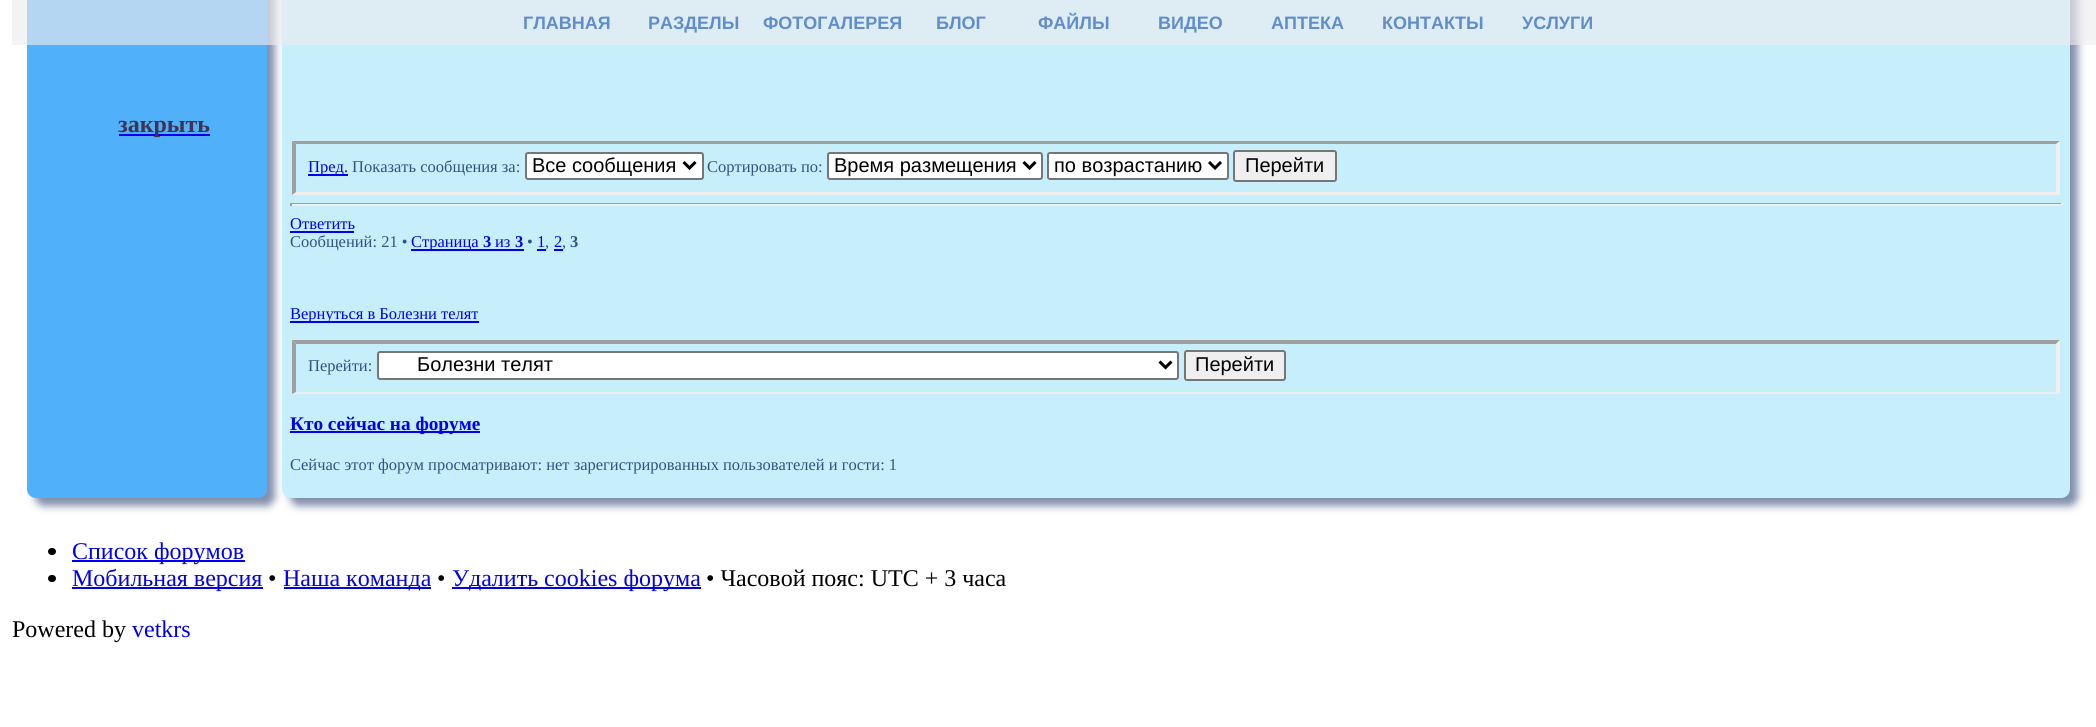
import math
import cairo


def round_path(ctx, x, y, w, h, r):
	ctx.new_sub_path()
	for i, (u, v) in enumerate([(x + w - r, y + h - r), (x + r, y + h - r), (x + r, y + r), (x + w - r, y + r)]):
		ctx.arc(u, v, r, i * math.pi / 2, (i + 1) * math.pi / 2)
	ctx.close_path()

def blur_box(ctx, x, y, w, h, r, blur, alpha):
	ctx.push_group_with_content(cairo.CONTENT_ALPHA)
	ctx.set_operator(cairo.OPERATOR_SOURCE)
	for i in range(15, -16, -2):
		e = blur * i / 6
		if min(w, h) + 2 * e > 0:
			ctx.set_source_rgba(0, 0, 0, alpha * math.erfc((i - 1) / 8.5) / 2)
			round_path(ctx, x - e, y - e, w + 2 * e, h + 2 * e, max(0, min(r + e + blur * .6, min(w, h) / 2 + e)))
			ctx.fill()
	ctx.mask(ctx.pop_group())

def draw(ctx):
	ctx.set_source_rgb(1, 1, 1)
	ctx.paint()
	ctx.set_source_rgb(0.51, 0.561, 0.675)
	blur_box(ctx, 35, -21, 240, 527, 9, 4, 1)
	ctx.set_source_rgb(0.314, 0.69, 0.973)
	round_path(ctx, 27, -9, 240, 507, 9)
	ctx.fill()
	ctx.set_source_rgb(0.51, 0.561, 0.675)
	blur_box(ctx, 290, -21, 1788, 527, 9, 4, 1)
	ctx.set_source_rgb(0.776, 0.933, 0.984)
	round_path(ctx, 282, -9, 1788, 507, 9)
	ctx.fill()
	ctx.set_source_rgba(0.922, 0.922, 0.929, 0.64)
	ctx.rectangle(12, 0, 2084, 45)
	ctx.fill()
	ctx.select_font_face('Liberation Sans', cairo.FONT_SLANT_NORMAL, cairo.FONT_WEIGHT_BOLD)
	ctx.set_font_size(18)
	ctx.set_source_rgb(0.38, 0.557, 0.788)
	for x, y, s in [
		(523, 29, 'ГЛАВНАЯ'),
		(648, 29, 'РАЗДЕЛЫ'),
		(763, 29, 'ФОТОГАЛЕРЕЯ'),
		(936, 29, 'БЛОГ'),
		(1038, 29, 'ФАЙЛЫ'),
		(1158, 29, 'ВИДЕО'),
		(1271, 29, 'АПТЕКА'),
		(1382, 29, 'КОНТАКТЫ'),
		(1522, 29, 'УСЛУГИ'),
	]:
		ctx.move_to(x, y)
		ctx.show_text(s)
	ctx.set_source_rgb(0, 0, 0.933)
	ctx.rectangle(119, 134, 91, 2)
	ctx.fill()
	ctx.select_font_face('Liberation Serif', cairo.FONT_SLANT_NORMAL, cairo.FONT_WEIGHT_BOLD)
	ctx.set_font_size(24)
	ctx.set_source_rgb(0.251, 0.196, 0.318)
	ctx.move_to(118, 132)
	ctx.show_text('закрыть')
	ctx.set_source_rgb(0.624, 0.624, 0.624)
	ctx.new_path()
	ctx.move_to(292, 141)
	ctx.line_to(2060, 141)
	ctx.line_to(2056, 144)
	ctx.line_to(296, 144)
	ctx.close_path()
	ctx.fill()
	ctx.set_source_rgb(0.937, 0.937, 0.937)
	ctx.new_path()
	ctx.move_to(2060, 141)
	ctx.line_to(2060, 195)
	ctx.line_to(2056, 192)
	ctx.line_to(2056, 144)
	ctx.close_path()
	ctx.fill()
	ctx.new_path()
	ctx.move_to(2060, 195)
	ctx.line_to(292, 195)
	ctx.line_to(296, 192)
	ctx.line_to(2056, 192)
	ctx.close_path()
	ctx.fill()
	ctx.set_source_rgb(0.624, 0.624, 0.624)
	ctx.new_path()
	ctx.move_to(292, 195)
	ctx.line_to(292, 141)
	ctx.line_to(296, 144)
	ctx.line_to(296, 192)
	ctx.close_path()
	ctx.fill()
	ctx.set_source_rgb(0, 0, 0.933)
	ctx.rectangle(308, 174, 40, 2)
	ctx.fill()
	ctx.select_font_face('Liberation Serif')
	ctx.set_font_size(16.5)
	ctx.move_to(308, 172)
	ctx.show_text('Пред.')
	ctx.set_source_rgb(0.18, 0.333, 0.506)
	ctx.move_to(352, 172)
	ctx.show_text('Показать сообщения за:')
	ctx.set_source_rgb(1, 1, 1)
	round_path(ctx, 526, 153, 177, 26, 2)
	ctx.fill_preserve()
	ctx.set_source_rgb(0.463, 0.463, 0.463)
	ctx.stroke()
	ctx.new_path()
	ctx.move_to(683.5, 162)
	ctx.line_to(689.5, 168)
	ctx.line_to(695.5, 162)
	ctx.set_source_rgb(0, 0, 0)
	ctx.set_line_width(3)
	ctx.stroke()
	ctx.select_font_face('Liberation Sans')
	ctx.set_font_size(20)
	ctx.move_to(532, 172)
	ctx.show_text('Все сообщения')
	ctx.select_font_face('Liberation Serif')
	ctx.set_font_size(16.5)
	ctx.set_source_rgb(0.18, 0.333, 0.506)
	ctx.move_to(707, 172)
	ctx.show_text('Сортировать по:')
	ctx.set_source_rgb(1, 1, 1)
	round_path(ctx, 828, 153, 214, 26, 2)
	ctx.fill_preserve()
	ctx.set_source_rgb(0.463, 0.463, 0.463)
	ctx.set_line_width(2)
	ctx.stroke()
	ctx.new_path()
	ctx.move_to(1023.5, 162)
	ctx.line_to(1029.5, 168)
	ctx.line_to(1035.5, 162)
	ctx.set_source_rgb(0, 0, 0)
	ctx.set_line_width(3)
	ctx.stroke()
	ctx.select_font_face('Liberation Sans')
	ctx.set_font_size(20)
	ctx.move_to(834, 172)
	ctx.show_text('Время размещения')
	ctx.set_source_rgb(1, 1, 1)
	round_path(ctx, 1048, 153, 180, 26, 2)
	ctx.fill_preserve()
	ctx.set_source_rgb(0.463, 0.463, 0.463)
	ctx.set_line_width(2)
	ctx.stroke()
	ctx.new_path()
	ctx.move_to(1209, 162)
	ctx.line_to(1215, 168)
	ctx.line_to(1221, 162)
	ctx.set_source_rgb(0, 0, 0)
	ctx.set_line_width(3)
	ctx.stroke()
	ctx.move_to(1054, 172)
	ctx.show_text('по возрастанию')
	ctx.set_source_rgb(0.937, 0.937, 0.937)
	round_path(ctx, 1234, 151, 102, 30, 2)
	ctx.fill_preserve()
	ctx.set_source_rgb(0.463, 0.463, 0.463)
	ctx.set_line_width(2)
	ctx.stroke()
	ctx.set_source_rgb(0, 0, 0)
	ctx.move_to(1245, 172)
	ctx.show_text('Перейти')
	ctx.set_source_rgb(0.624, 0.624, 0.624)
	ctx.rectangle(290, 203, 1773, 1)
	ctx.fill()
	ctx.set_source_rgb(0.933, 0.933, 0.933)
	ctx.rectangle(2061, 203, 2, 3)
	ctx.rectangle(290, 204, 1773, 2)
	ctx.fill()
	ctx.set_source_rgb(0.624, 0.624, 0.624)
	ctx.rectangle(290, 203, 2, 3)
	ctx.fill()
	ctx.select_font_face('Liberation Serif')
	ctx.set_font_size(16.5)
	ctx.set_source_rgb(0, 0, 0.933)
	ctx.move_to(290, 229)
	ctx.show_text('Ответить')
	ctx.rectangle(290, 231, 64, 2)
	ctx.fill()
	ctx.set_source_rgb(0.18, 0.333, 0.506)
	ctx.move_to(290, 247)
	ctx.show_text('Сообщений: 21 •')
	ctx.set_source_rgb(0, 0, 0.933)
	ctx.rectangle(411, 249, 113, 2)
	ctx.fill()
	ctx.move_to(411, 247)
	ctx.show_text('Страница')
	ctx.select_font_face('Liberation Serif', cairo.FONT_SLANT_NORMAL, cairo.FONT_WEIGHT_BOLD)
	ctx.move_to(483, 247)
	ctx.show_text('3')
	ctx.select_font_face('Liberation Serif')
	ctx.move_to(495, 247)
	ctx.show_text('из')
	ctx.select_font_face('Liberation Serif', cairo.FONT_SLANT_NORMAL, cairo.FONT_WEIGHT_BOLD)
	ctx.move_to(515, 247)
	ctx.show_text('3')
	ctx.select_font_face('Liberation Serif')
	ctx.set_source_rgb(0.18, 0.333, 0.506)
	ctx.move_to(527, 247)
	ctx.show_text('•')
	ctx.set_source_rgb(0, 0, 0.933)
	ctx.move_to(537, 247)
	ctx.show_text('1')
	ctx.move_to(554, 247)
	ctx.show_text('2')
	ctx.select_font_face('Liberation Serif', cairo.FONT_SLANT_NORMAL, cairo.FONT_WEIGHT_BOLD)
	ctx.set_source_rgb(0.18, 0.333, 0.506)
	ctx.move_to(570, 247)
	ctx.show_text('3')
	ctx.set_source_rgb(0, 0, 0.933)
	ctx.rectangle(537, 249, 9, 2)
	ctx.fill()
	ctx.select_font_face('Liberation Serif')
	ctx.set_source_rgb(0.18, 0.333, 0.506)
	ctx.move_to(545, 247)
	ctx.show_text(',')
	ctx.set_source_rgb(0, 0, 0.933)
	ctx.rectangle(554, 249, 9, 2)
	ctx.fill()
	ctx.set_source_rgb(0.18, 0.333, 0.506)
	ctx.move_to(562, 247)
	ctx.show_text(',')
	ctx.set_source_rgb(0, 0, 0.933)
	ctx.rectangle(290, 321, 189, 2)
	ctx.fill()
	ctx.move_to(290, 319)
	ctx.show_text('Вернуться в Болезни телят')
	ctx.set_source_rgb(0.624, 0.624, 0.624)
	ctx.new_path()
	ctx.move_to(292, 340)
	ctx.line_to(2060, 340)
	ctx.line_to(2056, 344)
	ctx.line_to(296, 344)
	ctx.close_path()
	ctx.fill()
	ctx.set_source_rgb(0.937, 0.937, 0.937)
	ctx.new_path()
	ctx.move_to(2060, 340)
	ctx.line_to(2060, 394)
	ctx.line_to(2056, 392)
	ctx.line_to(2056, 344)
	ctx.close_path()
	ctx.fill()
	ctx.new_path()
	ctx.move_to(2060, 394)
	ctx.line_to(292, 394)
	ctx.line_to(296, 392)
	ctx.line_to(2056, 392)
	ctx.close_path()
	ctx.fill()
	ctx.set_source_rgb(0.624, 0.624, 0.624)
	ctx.new_path()
	ctx.move_to(292, 394)
	ctx.line_to(292, 340)
	ctx.line_to(296, 344)
	ctx.line_to(296, 392)
	ctx.close_path()
	ctx.fill()
	ctx.set_source_rgb(0.18, 0.333, 0.506)
	ctx.move_to(308, 371)
	ctx.show_text('Перейти:')
	ctx.set_source_rgb(1, 1, 1)
	round_path(ctx, 378, 352, 800, 27, 2)
	ctx.fill_preserve()
	ctx.set_source_rgb(0.463, 0.463, 0.463)
	ctx.stroke()
	ctx.new_path()
	ctx.move_to(1159.5, 361.5)
	ctx.line_to(1165.5, 367.5)
	ctx.line_to(1171.5, 361.5)
	ctx.set_source_rgb(0, 0, 0)
	ctx.set_line_width(3)
	ctx.stroke()
	ctx.select_font_face('Liberation Sans')
	ctx.set_font_size(20)
	ctx.move_to(417, 371)
	ctx.show_text('Болезни телят')
	ctx.set_source_rgb(0.937, 0.937, 0.937)
	round_path(ctx, 1185, 351, 100, 29, 2)
	ctx.fill_preserve()
	ctx.set_source_rgb(0.463, 0.463, 0.463)
	ctx.set_line_width(2)
	ctx.stroke()
	ctx.set_source_rgb(0, 0, 0)
	ctx.move_to(1195, 371)
	ctx.show_text('Перейти')
	ctx.set_source_rgb(0, 0, 0.933)
	ctx.rectangle(290, 431, 190, 2)
	ctx.fill()
	ctx.select_font_face('Liberation Serif', cairo.FONT_SLANT_NORMAL, cairo.FONT_WEIGHT_BOLD)
	ctx.set_font_size(19.25)
	ctx.move_to(290, 430)
	ctx.show_text('Кто сейчас на форуме')
	ctx.select_font_face('Liberation Serif')
	ctx.set_font_size(16.5)
	ctx.set_source_rgb(0.18, 0.333, 0.506)
	ctx.move_to(290, 470)
	ctx.show_text('Сейчас этот форум просматривают: нет зарегистрированных пользователей и гости: 1')
	ctx.set_source_rgb(0, 0, 0)
	round_path(ctx, 48, 548, 8, 7, 3.5)
	ctx.fill()
	ctx.set_source_rgb(0, 0, 0.933)
	ctx.rectangle(72, 560, 173, 2)
	ctx.fill()
	ctx.set_font_size(24)
	ctx.move_to(72, 559)
	ctx.show_text('Список форумов')
	ctx.set_source_rgb(0, 0, 0)
	round_path(ctx, 48, 575, 8, 7, 3.5)
	ctx.fill()
	ctx.set_source_rgb(0, 0, 0.933)
	ctx.rectangle(72, 587, 191, 2)
	ctx.fill()
	ctx.move_to(72, 586)
	ctx.show_text('Мобильная версия')
	ctx.set_source_rgb(0, 0, 0)
	ctx.move_to(268, 586)
	ctx.show_text('•')
	ctx.set_source_rgb(0, 0, 0.933)
	ctx.rectangle(284, 587, 147, 2)
	ctx.fill()
	ctx.move_to(283, 586)
	ctx.show_text('Наша команда')
	ctx.set_source_rgb(0, 0, 0)
	ctx.move_to(437, 586)
	ctx.show_text('•')
	ctx.set_source_rgb(0, 0, 0.933)
	ctx.rectangle(452, 587, 249, 2)
	ctx.fill()
	ctx.move_to(452, 586)
	ctx.show_text('Удалить cookies форума')
	ctx.set_source_rgb(0, 0, 0)
	ctx.move_to(706, 586)
	ctx.show_text('• Часовой пояс: UTC + 3 часа')
	ctx.move_to(12, 637)
	ctx.show_text('Powered by')
	ctx.set_source_rgb(0, 0, 0.933)
	ctx.move_to(132, 637)
	ctx.show_text('vetkrs')


surface = cairo.ImageSurface(cairo.FORMAT_RGB24, 2096, 727)
ctx = cairo.Context(surface)
options = cairo.FontOptions()
options.set_hint_metrics(cairo.HINT_METRICS_OFF)
options.set_hint_style(cairo.HINT_STYLE_NONE)
ctx.set_font_options(options)
ctx.set_miter_limit(4)
draw(ctx)
surface.write_to_png('image.png')
